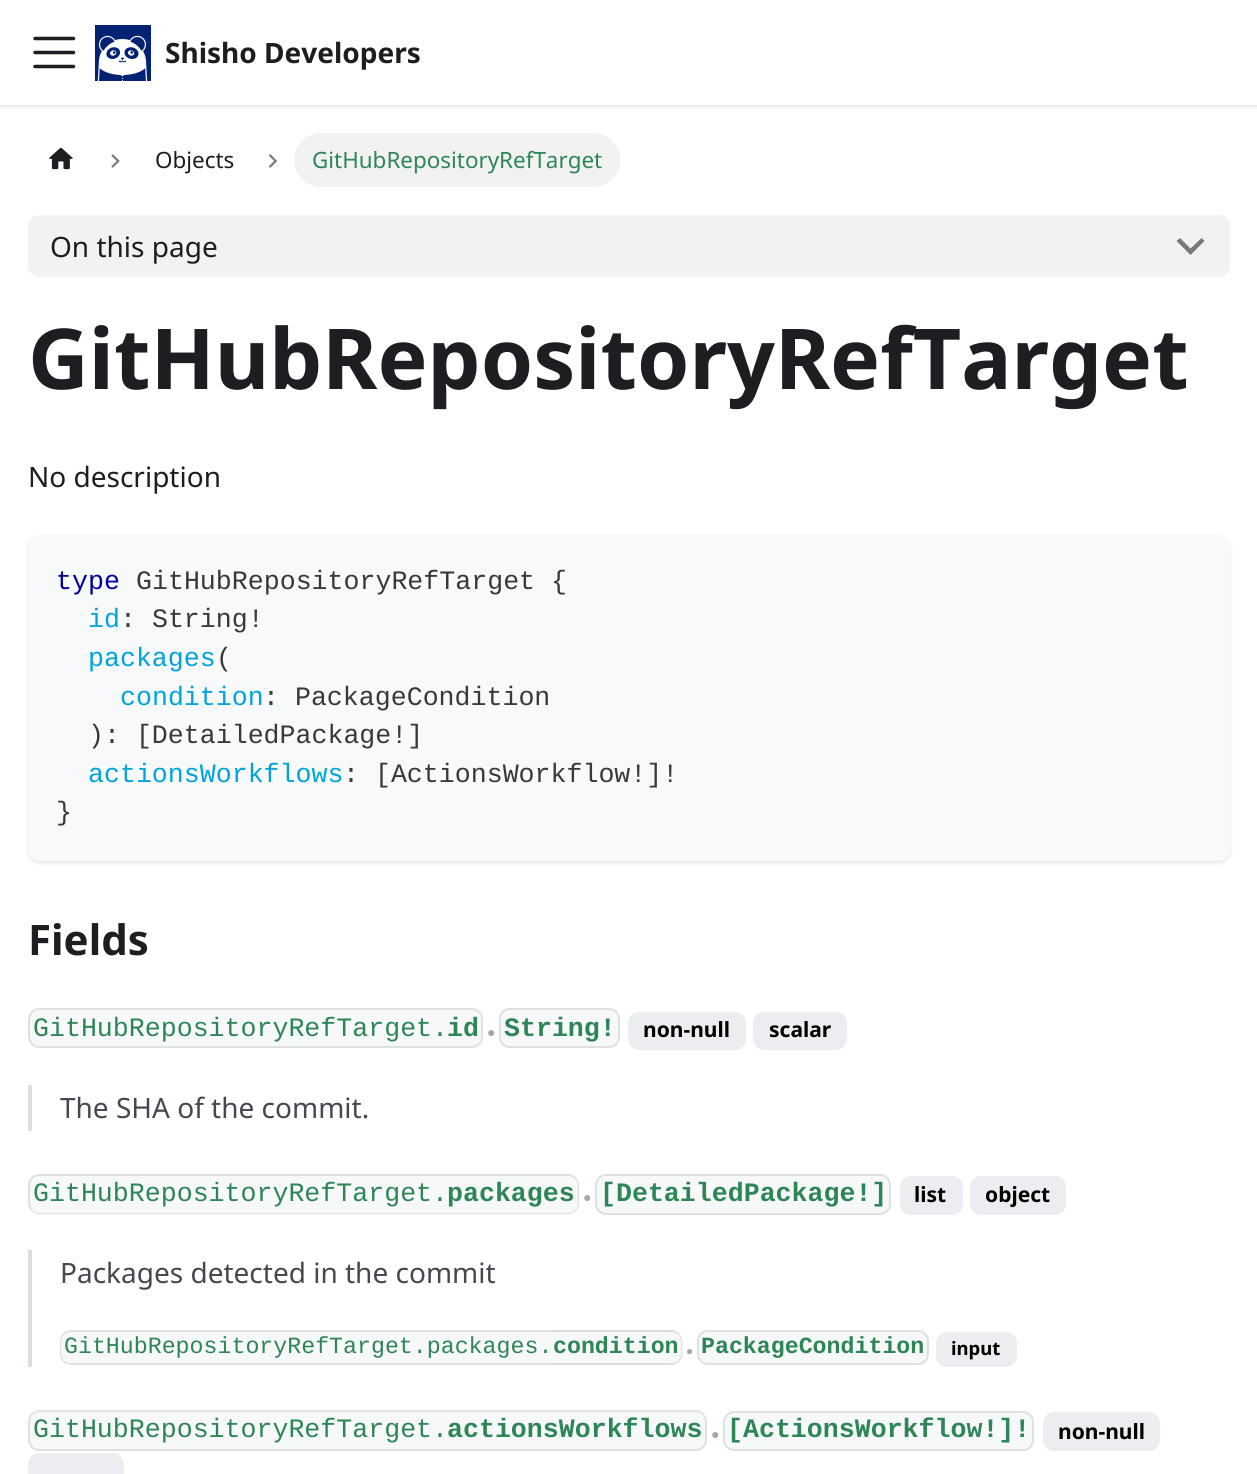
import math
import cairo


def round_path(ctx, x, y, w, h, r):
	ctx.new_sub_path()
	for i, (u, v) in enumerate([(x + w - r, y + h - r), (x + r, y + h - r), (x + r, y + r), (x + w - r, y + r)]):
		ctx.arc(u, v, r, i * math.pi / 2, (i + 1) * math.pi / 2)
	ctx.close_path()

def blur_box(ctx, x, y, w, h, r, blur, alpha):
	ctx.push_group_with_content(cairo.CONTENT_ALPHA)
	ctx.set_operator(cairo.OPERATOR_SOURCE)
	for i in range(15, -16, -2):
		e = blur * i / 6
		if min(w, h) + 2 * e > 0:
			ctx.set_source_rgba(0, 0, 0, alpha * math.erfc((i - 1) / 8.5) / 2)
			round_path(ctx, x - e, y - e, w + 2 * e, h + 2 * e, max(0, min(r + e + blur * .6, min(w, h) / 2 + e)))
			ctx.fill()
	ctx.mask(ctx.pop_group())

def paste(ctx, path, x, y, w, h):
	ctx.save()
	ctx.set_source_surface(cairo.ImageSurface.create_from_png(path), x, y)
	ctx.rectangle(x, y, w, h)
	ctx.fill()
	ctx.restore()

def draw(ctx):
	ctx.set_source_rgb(1, 1, 1)
	ctx.paint()
	ctx.save()
	ctx.rectangle(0, 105, 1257, 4)
	ctx.clip()
	ctx.set_source_rgb(0, 0, 0)
	blur_box(ctx, 0, 2, 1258, 105, 0, 2, 0.1)
	ctx.restore()
	ctx.new_path()
	ctx.move_to(35, 38.5)
	ctx.line_to(73.5, 38.5)
	ctx.move_to(35, 52.5)
	ctx.line_to(73.5, 52.5)
	ctx.move_to(35, 66.5)
	ctx.line_to(73.5, 66.5)
	ctx.set_source_rgb(0.11, 0.118, 0.129)
	ctx.set_line_width(3.5)
	ctx.set_line_cap(cairo.LINE_CAP_ROUND)
	ctx.stroke()
	paste(ctx, 'media/1.png', 95, 25, 56, 56)
	ctx.select_font_face('Noto Sans', cairo.FONT_SLANT_NORMAL, cairo.FONT_WEIGHT_BOLD)
	ctx.set_font_size(28)
	ctx.move_to(165, 63)
	ctx.show_text('Shisho Developers')
	paste(ctx, 'media/2.png', 49, 147, 24, 23)
	paste(ctx, 'media/3.png', 111, 154, 9, 14)
	ctx.select_font_face('Noto Sans')
	ctx.set_font_size(22.4)
	ctx.move_to(155, 168)
	ctx.show_text('Objects')
	paste(ctx, 'media/4.png', 268, 154, 10, 14)
	ctx.set_source_rgb(0.949, 0.949, 0.949)
	round_path(ctx, 294, 133, 326, 54, 27)
	ctx.fill()
	ctx.set_source_rgb(0.18, 0.522, 0.333)
	ctx.move_to(312, 168)
	ctx.show_text('GitHubRepositoryRefTarget')
	ctx.set_source_rgb(0.949, 0.949, 0.949)
	round_path(ctx, 28, 215, 1202, 62, 11)
	ctx.fill()
	ctx.set_font_size(28)
	ctx.set_source_rgb(0.11, 0.118, 0.129)
	ctx.move_to(50, 257)
	ctx.show_text('On this page')
	ctx.set_source_rgb(0.475, 0.475, 0.475)
	ctx.new_path()
	ctx.move_to(1201.5, 238)
	ctx.line_to(1190.5, 248.5)
	ctx.line_to(1180, 238)
	ctx.line_to(1176.5, 241)
	ctx.line_to(1190.5, 255)
	ctx.line_to(1204.5, 241)
	ctx.close_path()
	ctx.fill()
	ctx.select_font_face('Noto Sans', cairo.FONT_SLANT_NORMAL, cairo.FONT_WEIGHT_BOLD)
	ctx.set_font_size(84)
	ctx.set_source_rgb(0.11, 0.118, 0.129)
	ctx.move_to(28, 389)
	ctx.show_text('GitHubRepositoryRefTarget')
	ctx.select_font_face('Noto Sans')
	ctx.set_font_size(28)
	ctx.move_to(28, 487)
	ctx.show_text('No description')
	ctx.set_source_rgb(0, 0, 0)
	blur_box(ctx, 28, 537, 1202, 326, 11, 2, 0.1)
	ctx.set_source_rgb(0.965, 0.973, 0.98)
	round_path(ctx, 28, 536, 1202, 325, 11)
	ctx.fill()
	ctx.select_font_face('Liberation Mono')
	ctx.set_font_size(26.6)
	ctx.set_source_rgb(0, 0, 0.624)
	ctx.move_to(56, 589)
	ctx.show_text('type')
	ctx.set_source_rgb(0.224, 0.227, 0.204)
	ctx.move_to(136, 589)
	ctx.show_text('GitHubRepositoryRefTarget')
	ctx.move_to(551, 589)
	ctx.show_text('{')
	ctx.set_source_rgb(0, 0.643, 0.859)
	ctx.move_to(88, 627)
	ctx.show_text('id')
	ctx.set_source_rgb(0.224, 0.227, 0.204)
	ctx.move_to(120, 627)
	ctx.show_text(': String!')
	ctx.set_source_rgb(0, 0.643, 0.859)
	ctx.move_to(88, 666)
	ctx.show_text('packages')
	ctx.set_source_rgb(0.224, 0.227, 0.204)
	ctx.move_to(216, 666)
	ctx.show_text('(')
	ctx.set_source_rgb(0, 0.643, 0.859)
	ctx.move_to(120, 705)
	ctx.show_text('condition')
	ctx.set_source_rgb(0.224, 0.227, 0.204)
	ctx.move_to(263, 705)
	ctx.show_text(': PackageCondition')
	ctx.move_to(88, 743)
	ctx.show_text('): [DetailedPackage!]')
	ctx.set_source_rgb(0, 0.643, 0.859)
	ctx.move_to(88, 782)
	ctx.show_text('actionsWorkflows')
	ctx.set_source_rgb(0.224, 0.227, 0.204)
	ctx.move_to(343, 782)
	ctx.show_text(': [ActionsWorkflow!]!')
	ctx.move_to(56, 820)
	ctx.show_text('}')
	ctx.select_font_face('Noto Sans', cairo.FONT_SLANT_NORMAL, cairo.FONT_WEIGHT_BOLD)
	ctx.set_font_size(42)
	ctx.set_source_rgb(0.11, 0.118, 0.129)
	ctx.move_to(28, 955)
	ctx.show_text('Fields')
	ctx.set_source_rgb(0.965, 0.969, 0.973)
	ctx.new_path()
	ctx.move_to(39, 1008)
	ctx.line_to(448, 1008)
	ctx.line_to(448, 1048)
	ctx.line_to(39, 1048)
	ctx.curve_to(33, 1048, 28, 1043, 28, 1037)
	ctx.line_to(28, 1019)
	ctx.curve_to(28, 1013, 33, 1008, 39, 1008)
	ctx.close_path()
	ctx.fill()
	ctx.set_source_rgba(0, 0, 0, 0.1)
	ctx.set_fill_rule(cairo.FILL_RULE_EVEN_ODD)
	ctx.new_path()
	ctx.move_to(39, 1008)
	ctx.line_to(448, 1008)
	ctx.line_to(448, 1048)
	ctx.line_to(39, 1048)
	ctx.curve_to(33, 1048, 28, 1043, 28, 1037)
	ctx.line_to(28, 1019)
	ctx.curve_to(28, 1013, 33, 1008, 39, 1008)
	ctx.close_path()
	ctx.move_to(39, 1010)
	ctx.line_to(448, 1010)
	ctx.line_to(448, 1046)
	ctx.line_to(39, 1046)
	ctx.curve_to(29, 1046, 30, 1035, 30, 1028)
	ctx.curve_to(30, 1021, 29, 1010, 39, 1010)
	ctx.close_path()
	ctx.fill()
	ctx.select_font_face('Liberation Mono')
	ctx.set_font_size(26.6)
	ctx.set_source_rgb(0.18, 0.522, 0.333)
	ctx.move_to(33, 1036)
	ctx.show_text('GitHubRepositoryRefTarget.')
	ctx.set_source_rgb(0.965, 0.969, 0.973)
	ctx.new_path()
	ctx.move_to(448, 1008)
	ctx.line_to(472, 1008)
	ctx.curve_to(478, 1008, 483, 1013, 483, 1019)
	ctx.line_to(483, 1037)
	ctx.curve_to(483, 1043, 478, 1048, 472, 1048)
	ctx.line_to(448, 1048)
	ctx.close_path()
	ctx.fill()
	ctx.set_source_rgba(0, 0, 0, 0.1)
	ctx.new_path()
	ctx.move_to(448, 1008)
	ctx.line_to(472, 1008)
	ctx.curve_to(478, 1008, 483, 1013, 483, 1019)
	ctx.line_to(483, 1037)
	ctx.curve_to(483, 1043, 478, 1048, 472, 1048)
	ctx.line_to(448, 1048)
	ctx.close_path()
	ctx.move_to(448, 1010)
	ctx.line_to(472, 1010)
	ctx.curve_to(477, 1010, 481, 1014, 481, 1019)
	ctx.line_to(481, 1037)
	ctx.curve_to(481, 1042, 477, 1046, 472, 1046)
	ctx.line_to(448, 1046)
	ctx.close_path()
	ctx.fill()
	ctx.select_font_face('Liberation Mono', cairo.FONT_SLANT_NORMAL, cairo.FONT_WEIGHT_BOLD)
	ctx.set_source_rgb(0.18, 0.522, 0.333)
	ctx.move_to(447, 1036)
	ctx.show_text('id')
	ctx.select_font_face('Liberation Sans')
	ctx.set_font_size(14)
	ctx.set_source_rgb(0.643, 0.651, 0.659)
	ctx.move_to(487, 1037)
	ctx.show_text('●')
	ctx.set_source_rgb(0.965, 0.969, 0.973)
	round_path(ctx, 499, 1008, 121, 40, 11)
	ctx.fill()
	round_path(ctx, 500, 1009, 119, 38, 10)
	ctx.set_source_rgba(0, 0, 0, 0.1)
	ctx.set_line_width(2)
	ctx.set_line_cap(cairo.LINE_CAP_BUTT)
	ctx.stroke()
	ctx.select_font_face('Liberation Mono', cairo.FONT_SLANT_NORMAL, cairo.FONT_WEIGHT_BOLD)
	ctx.set_font_size(26.6)
	ctx.set_source_rgb(0.18, 0.522, 0.333)
	ctx.move_to(504, 1036)
	ctx.show_text('String!')
	ctx.set_source_rgb(0.922, 0.929, 0.941)
	round_path(ctx, 629, 1013, 116, 36, 10)
	ctx.fill_preserve()
	ctx.stroke()
	ctx.select_font_face('Noto Sans', cairo.FONT_SLANT_NORMAL, cairo.FONT_WEIGHT_BOLD)
	ctx.set_font_size(21)
	ctx.set_source_rgb(0, 0, 0)
	ctx.move_to(643, 1037)
	ctx.show_text('non-null')
	ctx.set_source_rgb(0.922, 0.929, 0.941)
	round_path(ctx, 754, 1013, 92, 36, 10)
	ctx.fill_preserve()
	ctx.stroke()
	ctx.set_source_rgb(0, 0, 0)
	ctx.move_to(769, 1037)
	ctx.show_text('scalar')
	ctx.set_source_rgb(0.855, 0.867, 0.882)
	ctx.rectangle(28, 1085, 4, 46)
	ctx.fill()
	ctx.select_font_face('Noto Sans')
	ctx.set_font_size(28)
	ctx.set_source_rgb(0.267, 0.286, 0.314)
	ctx.move_to(60, 1118)
	ctx.show_text('The SHA of the commit.')
	ctx.set_source_rgb(0.965, 0.969, 0.973)
	ctx.new_path()
	ctx.move_to(39, 1174)
	ctx.line_to(448, 1174)
	ctx.line_to(448, 1215)
	ctx.line_to(39, 1215)
	ctx.curve_to(33, 1215, 28, 1210, 28, 1204)
	ctx.line_to(28, 1185)
	ctx.curve_to(28, 1179, 33, 1174, 39, 1174)
	ctx.close_path()
	ctx.fill()
	ctx.set_source_rgba(0, 0, 0, 0.1)
	ctx.new_path()
	ctx.move_to(39, 1174)
	ctx.line_to(448, 1174)
	ctx.line_to(448, 1214)
	ctx.line_to(39, 1214)
	ctx.curve_to(33, 1214, 28, 1209, 28, 1203)
	ctx.line_to(28, 1185)
	ctx.curve_to(28, 1179, 33, 1174, 39, 1174)
	ctx.close_path()
	ctx.move_to(39, 1176)
	ctx.line_to(448, 1176)
	ctx.line_to(448, 1213)
	ctx.line_to(39, 1213)
	ctx.curve_to(29, 1213, 30, 1202, 30, 1194)
	ctx.curve_to(30, 1187, 29, 1176, 39, 1176)
	ctx.close_path()
	ctx.fill()
	ctx.select_font_face('Liberation Mono')
	ctx.set_font_size(26.6)
	ctx.set_source_rgb(0.18, 0.522, 0.333)
	ctx.move_to(33, 1201)
	ctx.show_text('GitHubRepositoryRefTarget.')
	ctx.set_source_rgb(0.965, 0.969, 0.973)
	ctx.new_path()
	ctx.move_to(448, 1174)
	ctx.line_to(568, 1174)
	ctx.curve_to(574, 1174, 579, 1179, 579, 1185)
	ctx.line_to(579, 1204)
	ctx.curve_to(579, 1210, 574, 1215, 568, 1215)
	ctx.line_to(448, 1215)
	ctx.close_path()
	ctx.fill()
	ctx.set_source_rgba(0, 0, 0, 0.1)
	ctx.new_path()
	ctx.move_to(448, 1174)
	ctx.line_to(568, 1174)
	ctx.curve_to(574, 1174, 579, 1179, 579, 1185)
	ctx.line_to(579, 1203)
	ctx.curve_to(579, 1209, 574, 1214, 568, 1214)
	ctx.line_to(448, 1214)
	ctx.close_path()
	ctx.move_to(448, 1176)
	ctx.line_to(568, 1176)
	ctx.curve_to(573, 1176, 578, 1180, 578, 1185)
	ctx.line_to(578, 1203)
	ctx.curve_to(578, 1209, 573, 1213, 568, 1213)
	ctx.line_to(448, 1213)
	ctx.close_path()
	ctx.fill()
	ctx.select_font_face('Liberation Mono', cairo.FONT_SLANT_NORMAL, cairo.FONT_WEIGHT_BOLD)
	ctx.set_source_rgb(0.18, 0.522, 0.333)
	ctx.move_to(447, 1201)
	ctx.show_text('packages')
	ctx.select_font_face('Liberation Sans')
	ctx.set_font_size(14)
	ctx.set_source_rgb(0.643, 0.651, 0.659)
	ctx.move_to(583, 1202)
	ctx.show_text('●')
	ctx.set_source_rgb(0.965, 0.969, 0.973)
	round_path(ctx, 595, 1174, 296, 41, 11)
	ctx.fill()
	round_path(ctx, 596, 1175, 294, 39, 10)
	ctx.set_source_rgba(0, 0, 0, 0.1)
	ctx.stroke()
	ctx.select_font_face('Liberation Mono', cairo.FONT_SLANT_NORMAL, cairo.FONT_WEIGHT_BOLD)
	ctx.set_font_size(26.6)
	ctx.set_source_rgb(0.18, 0.522, 0.333)
	ctx.move_to(600, 1201)
	ctx.show_text('[DetailedPackage!]')
	ctx.set_source_rgb(0.922, 0.929, 0.941)
	round_path(ctx, 901, 1177, 61, 37, 10)
	ctx.fill_preserve()
	ctx.stroke()
	ctx.select_font_face('Noto Sans', cairo.FONT_SLANT_NORMAL, cairo.FONT_WEIGHT_BOLD)
	ctx.set_font_size(21)
	ctx.set_source_rgb(0, 0, 0)
	ctx.move_to(914, 1202)
	ctx.show_text('list')
	ctx.set_source_rgb(0.922, 0.929, 0.941)
	round_path(ctx, 971, 1177, 94, 37, 10)
	ctx.fill_preserve()
	ctx.stroke()
	ctx.set_source_rgb(0, 0, 0)
	ctx.move_to(985, 1202)
	ctx.show_text('object')
	ctx.set_source_rgb(0.855, 0.867, 0.882)
	ctx.rectangle(28, 1250, 4, 117)
	ctx.fill()
	ctx.select_font_face('Noto Sans')
	ctx.set_font_size(28)
	ctx.set_source_rgb(0.267, 0.286, 0.314)
	ctx.move_to(60, 1283)
	ctx.show_text('Packages detected in the commit')
	ctx.set_source_rgb(0.965, 0.969, 0.973)
	ctx.new_path()
	ctx.move_to(71, 1330)
	ctx.line_to(553, 1330)
	ctx.line_to(553, 1365)
	ctx.line_to(71, 1365)
	ctx.curve_to(65, 1365, 60, 1360, 60, 1354)
	ctx.line_to(60, 1341)
	ctx.curve_to(60, 1335, 65, 1330, 71, 1330)
	ctx.close_path()
	ctx.fill()
	ctx.set_source_rgba(0, 0, 0, 0.1)
	ctx.new_path()
	ctx.move_to(71, 1330)
	ctx.line_to(553, 1330)
	ctx.line_to(553, 1365)
	ctx.line_to(71, 1365)
	ctx.curve_to(65, 1365, 60, 1360, 60, 1354)
	ctx.line_to(60, 1341)
	ctx.curve_to(60, 1335, 65, 1330, 71, 1330)
	ctx.close_path()
	ctx.move_to(71, 1332)
	ctx.line_to(553, 1332)
	ctx.line_to(553, 1363)
	ctx.line_to(71, 1363)
	ctx.curve_to(61, 1363, 61, 1354, 61, 1348)
	ctx.curve_to(61, 1341, 61, 1332, 71, 1332)
	ctx.close_path()
	ctx.fill()
	ctx.select_font_face('Liberation Mono')
	ctx.set_font_size(23.25)
	ctx.set_source_rgb(0.18, 0.522, 0.333)
	ctx.move_to(64, 1353)
	ctx.show_text('GitHubRepositoryRefTarget.packages.')
	ctx.set_source_rgb(0.965, 0.969, 0.973)
	ctx.new_path()
	ctx.move_to(553, 1330)
	ctx.line_to(672, 1330)
	ctx.curve_to(678, 1330, 683, 1335, 683, 1341)
	ctx.line_to(683, 1354)
	ctx.curve_to(683, 1360, 678, 1365, 672, 1365)
	ctx.line_to(553, 1365)
	ctx.close_path()
	ctx.fill()
	ctx.set_source_rgb(0.867, 0.871, 0.875)
	ctx.new_path()
	ctx.move_to(553, 1330)
	ctx.line_to(671, 1330)
	ctx.curve_to(677, 1330, 682, 1335, 682, 1341)
	ctx.line_to(682, 1354)
	ctx.curve_to(682, 1360, 677, 1365, 671, 1365)
	ctx.line_to(553, 1365)
	ctx.close_path()
	ctx.move_to(553, 1332)
	ctx.line_to(671, 1332)
	ctx.curve_to(677, 1332, 681, 1336, 681, 1341)
	ctx.line_to(681, 1354)
	ctx.curve_to(681, 1359, 677, 1363, 671, 1363)
	ctx.line_to(553, 1363)
	ctx.close_path()
	ctx.fill()
	ctx.select_font_face('Liberation Mono', cairo.FONT_SLANT_NORMAL, cairo.FONT_WEIGHT_BOLD)
	ctx.set_source_rgb(0.18, 0.522, 0.333)
	ctx.move_to(553, 1353)
	ctx.show_text('condition')
	ctx.select_font_face('Liberation Sans')
	ctx.set_font_size(12)
	ctx.set_source_rgb(0.643, 0.651, 0.659)
	ctx.move_to(686, 1355)
	ctx.show_text('●')
	ctx.set_source_rgb(0.965, 0.969, 0.973)
	round_path(ctx, 697, 1330, 232, 35, 11)
	ctx.fill()
	round_path(ctx, 698, 1331, 230, 33, 10)
	ctx.set_source_rgba(0, 0, 0, 0.1)
	ctx.stroke()
	ctx.select_font_face('Liberation Mono', cairo.FONT_SLANT_NORMAL, cairo.FONT_WEIGHT_BOLD)
	ctx.set_font_size(23.25)
	ctx.set_source_rgb(0.18, 0.522, 0.333)
	ctx.move_to(701, 1353)
	ctx.show_text('PackageCondition')
	ctx.set_source_rgb(0.922, 0.929, 0.941)
	round_path(ctx, 937, 1333, 79, 33, 10)
	ctx.fill_preserve()
	ctx.stroke()
	ctx.select_font_face('Noto Sans', cairo.FONT_SLANT_NORMAL, cairo.FONT_WEIGHT_BOLD)
	ctx.set_font_size(18.5)
	ctx.set_source_rgb(0, 0, 0)
	ctx.move_to(951, 1355)
	ctx.show_text('input')
	ctx.set_source_rgb(0.965, 0.969, 0.973)
	ctx.new_path()
	ctx.move_to(39, 1411)
	ctx.line_to(448, 1411)
	ctx.line_to(448, 1451)
	ctx.line_to(39, 1451)
	ctx.curve_to(33, 1451, 28, 1446, 28, 1440)
	ctx.line_to(28, 1422)
	ctx.curve_to(28, 1416, 33, 1411, 39, 1411)
	ctx.close_path()
	ctx.fill()
	ctx.set_source_rgba(0, 0, 0, 0.1)
	ctx.new_path()
	ctx.move_to(39, 1410)
	ctx.line_to(448, 1410)
	ctx.line_to(448, 1451)
	ctx.line_to(39, 1451)
	ctx.curve_to(33, 1451, 28, 1446, 28, 1440)
	ctx.line_to(28, 1422)
	ctx.curve_to(28, 1416, 33, 1410, 39, 1410)
	ctx.close_path()
	ctx.move_to(39, 1412)
	ctx.line_to(448, 1412)
	ctx.line_to(448, 1449)
	ctx.line_to(39, 1449)
	ctx.curve_to(29, 1449, 30, 1438, 30, 1431)
	ctx.curve_to(30, 1423, 29, 1412, 39, 1412)
	ctx.close_path()
	ctx.fill()
	ctx.select_font_face('Liberation Mono')
	ctx.set_font_size(26.6)
	ctx.set_source_rgb(0.18, 0.522, 0.333)
	ctx.move_to(33, 1437)
	ctx.show_text('GitHubRepositoryRefTarget.')
	ctx.set_source_rgb(0.965, 0.969, 0.973)
	ctx.new_path()
	ctx.move_to(448, 1411)
	ctx.line_to(696, 1411)
	ctx.curve_to(702, 1411, 707, 1416, 707, 1422)
	ctx.line_to(707, 1440)
	ctx.curve_to(707, 1446, 702, 1451, 696, 1451)
	ctx.line_to(448, 1451)
	ctx.close_path()
	ctx.fill()
	ctx.set_source_rgba(0, 0, 0, 0.1)
	ctx.new_path()
	ctx.move_to(448, 1410)
	ctx.line_to(696, 1410)
	ctx.curve_to(702, 1410, 707, 1416, 707, 1422)
	ctx.line_to(707, 1440)
	ctx.curve_to(707, 1446, 702, 1451, 696, 1451)
	ctx.line_to(448, 1451)
	ctx.close_path()
	ctx.move_to(448, 1412)
	ctx.line_to(696, 1412)
	ctx.curve_to(701, 1412, 705, 1416, 705, 1422)
	ctx.line_to(705, 1440)
	ctx.curve_to(705, 1445, 701, 1449, 696, 1449)
	ctx.line_to(448, 1449)
	ctx.close_path()
	ctx.fill()
	ctx.select_font_face('Liberation Mono', cairo.FONT_SLANT_NORMAL, cairo.FONT_WEIGHT_BOLD)
	ctx.set_source_rgb(0.18, 0.522, 0.333)
	ctx.move_to(447, 1437)
	ctx.show_text('actionsWorkflows')
	ctx.select_font_face('Liberation Sans')
	ctx.set_font_size(14)
	ctx.set_source_rgb(0.643, 0.651, 0.659)
	ctx.move_to(711, 1439)
	ctx.show_text('●')
	ctx.set_source_rgb(0.965, 0.969, 0.973)
	round_path(ctx, 723, 1411, 311, 40, 11)
	ctx.fill()
	round_path(ctx, 724, 1412, 309, 38, 10)
	ctx.set_source_rgba(0, 0, 0, 0.1)
	ctx.stroke()
	ctx.select_font_face('Liberation Mono', cairo.FONT_SLANT_NORMAL, cairo.FONT_WEIGHT_BOLD)
	ctx.set_font_size(26.6)
	ctx.set_source_rgb(0.18, 0.522, 0.333)
	ctx.move_to(727, 1437)
	ctx.show_text('[ActionsWorkflow!]!')
	ctx.set_source_rgb(0.922, 0.929, 0.941)
	round_path(ctx, 1044, 1413, 115, 37, 10)
	ctx.fill_preserve()
	ctx.stroke()
	ctx.select_font_face('Noto Sans', cairo.FONT_SLANT_NORMAL, cairo.FONT_WEIGHT_BOLD)
	ctx.set_font_size(21)
	ctx.set_source_rgb(0, 0, 0)
	ctx.move_to(1058, 1439)
	ctx.show_text('non-null')
	ctx.set_source_rgb(0.922, 0.929, 0.941)
	round_path(ctx, 29, 1454, 94, 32, 10)
	ctx.fill_preserve()
	ctx.stroke()


surface = cairo.ImageSurface(cairo.FORMAT_RGB24, 1257, 1474)
ctx = cairo.Context(surface)
options = cairo.FontOptions()
options.set_hint_metrics(cairo.HINT_METRICS_OFF)
options.set_hint_style(cairo.HINT_STYLE_NONE)
ctx.set_font_options(options)
ctx.set_miter_limit(4)
draw(ctx)
surface.write_to_png('image.png')
